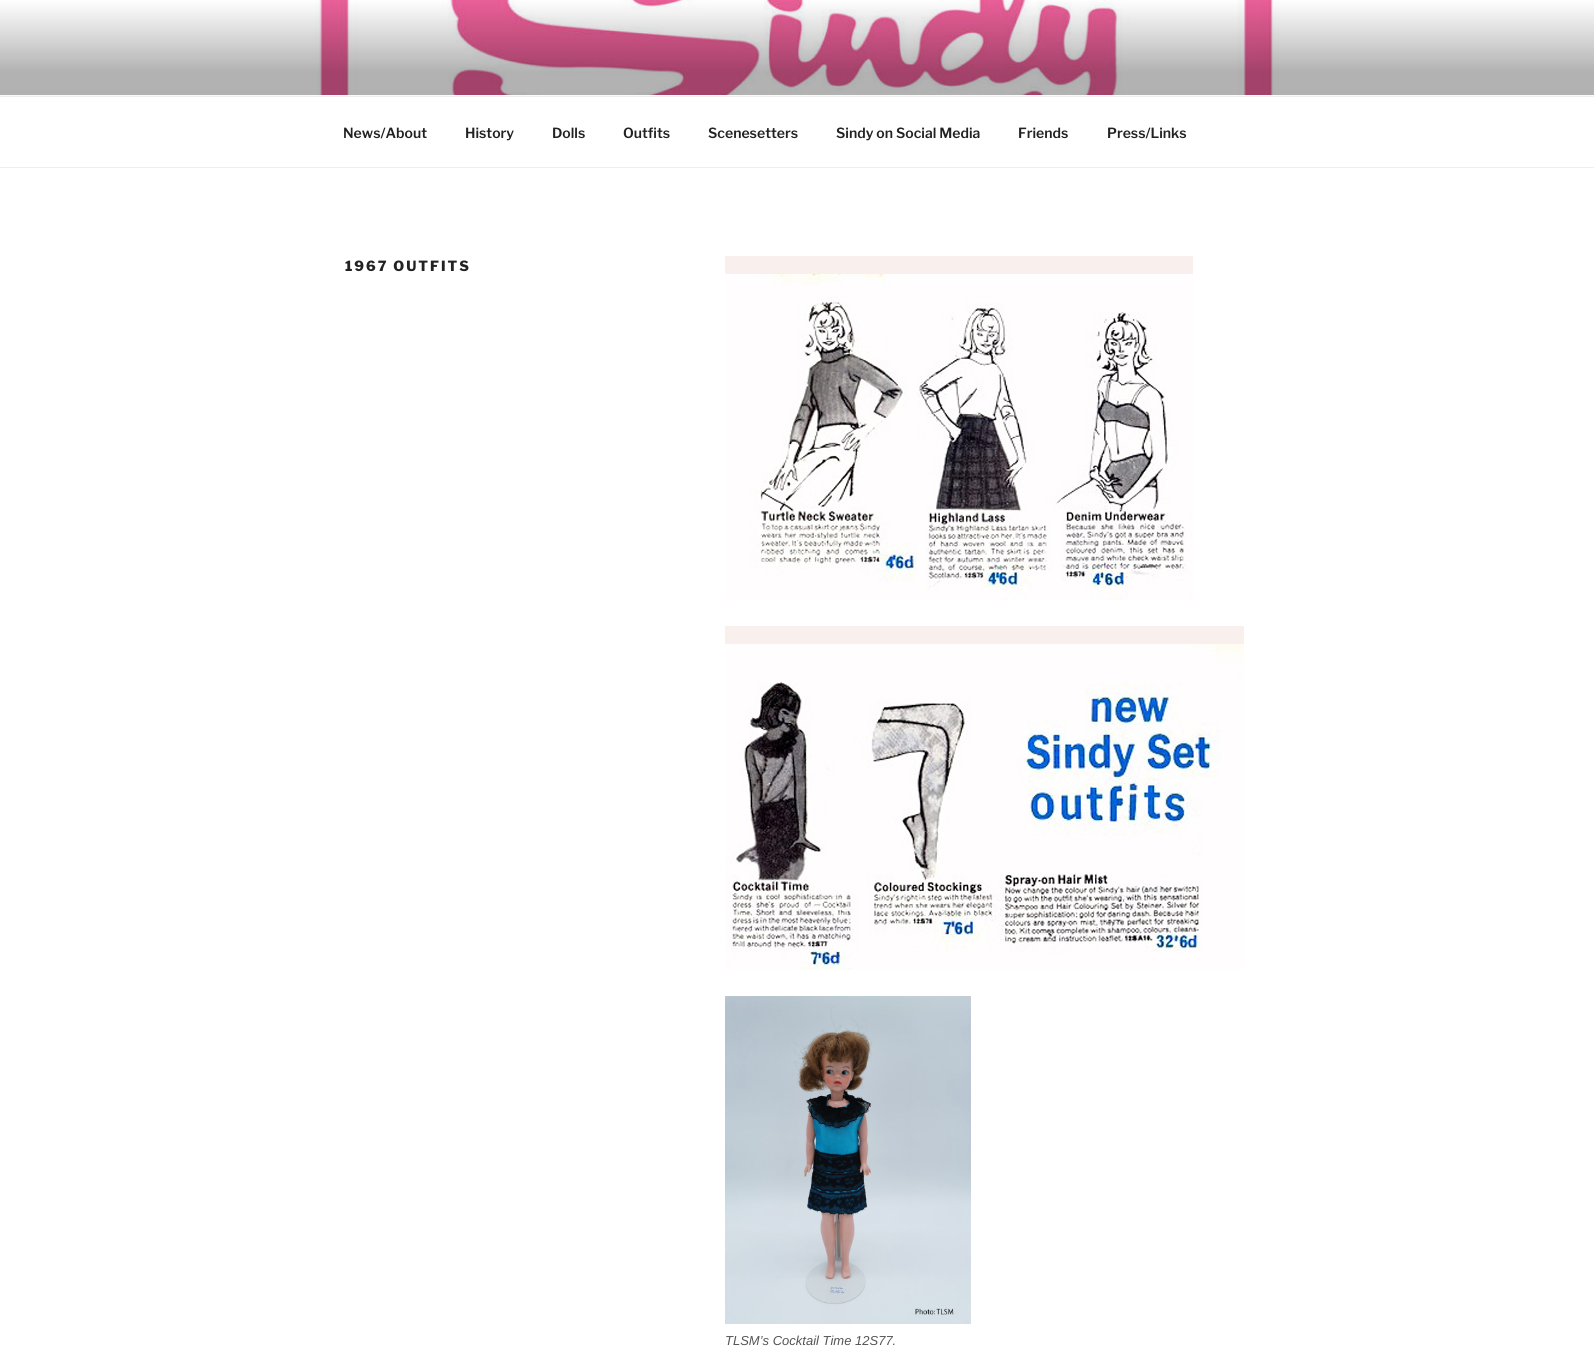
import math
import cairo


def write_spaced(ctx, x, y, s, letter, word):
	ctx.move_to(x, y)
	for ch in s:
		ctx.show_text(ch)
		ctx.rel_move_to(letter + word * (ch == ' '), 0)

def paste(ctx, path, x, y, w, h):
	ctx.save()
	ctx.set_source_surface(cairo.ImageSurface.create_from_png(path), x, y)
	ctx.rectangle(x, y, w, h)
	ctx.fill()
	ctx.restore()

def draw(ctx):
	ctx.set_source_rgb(1, 1, 1)
	ctx.paint()
	ctx.set_source_rgb(0.98, 0.98, 0.98)
	ctx.rectangle(0, 95, 1594, 1)
	ctx.fill()
	paste(ctx, 'media/1.png', 0, 0, 1594, 95)
	ctx.set_source_rgb(0.933, 0.933, 0.933)
	ctx.rectangle(0, 96, 1594, 1)
	ctx.fill()
	ctx.rectangle(0, 167, 1594, 1)
	ctx.fill()
	ctx.select_font_face('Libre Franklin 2 Thin')
	ctx.set_font_size(14)
	ctx.set_source_rgb(0.133, 0.133, 0.133)
	for x, y, s in [
		(343, 138, 'News/About'),
		(465, 138, 'History'),
		(552, 138, 'Dolls'),
		(623, 138, 'Outfits'),
		(708, 138, 'Scenesetters'),
		(836, 138, 'Sindy on Social Media'),
		(1018, 138, 'Friends'),
		(1107, 138, 'Press/Links'),
	]:
		ctx.move_to(x, y)
		ctx.show_text(s)
	ctx.select_font_face('Libre Franklin Thin')
	write_spaced(ctx, 345, 271, '1967 OUTFITS', 2, 0)
	paste(ctx, 'media/2.png', 725, 256, 468, 344)
	paste(ctx, 'media/3.png', 725, 626, 519, 344)
	paste(ctx, 'media/4.png', 725, 996, 246, 328)
	ctx.select_font_face('Liberation Sans', cairo.FONT_SLANT_ITALIC)
	ctx.set_font_size(13)
	ctx.set_source_rgb(0.333, 0.333, 0.333)
	ctx.move_to(725, 1345)
	ctx.show_text('TLSM’s Cocktail Time 12S77.')


surface = cairo.ImageSurface(cairo.FORMAT_RGB24, 1594, 1366)
ctx = cairo.Context(surface)
options = cairo.FontOptions()
options.set_hint_metrics(cairo.HINT_METRICS_OFF)
options.set_hint_style(cairo.HINT_STYLE_NONE)
ctx.set_font_options(options)
ctx.set_miter_limit(4)
draw(ctx)
surface.write_to_png('image.png')
